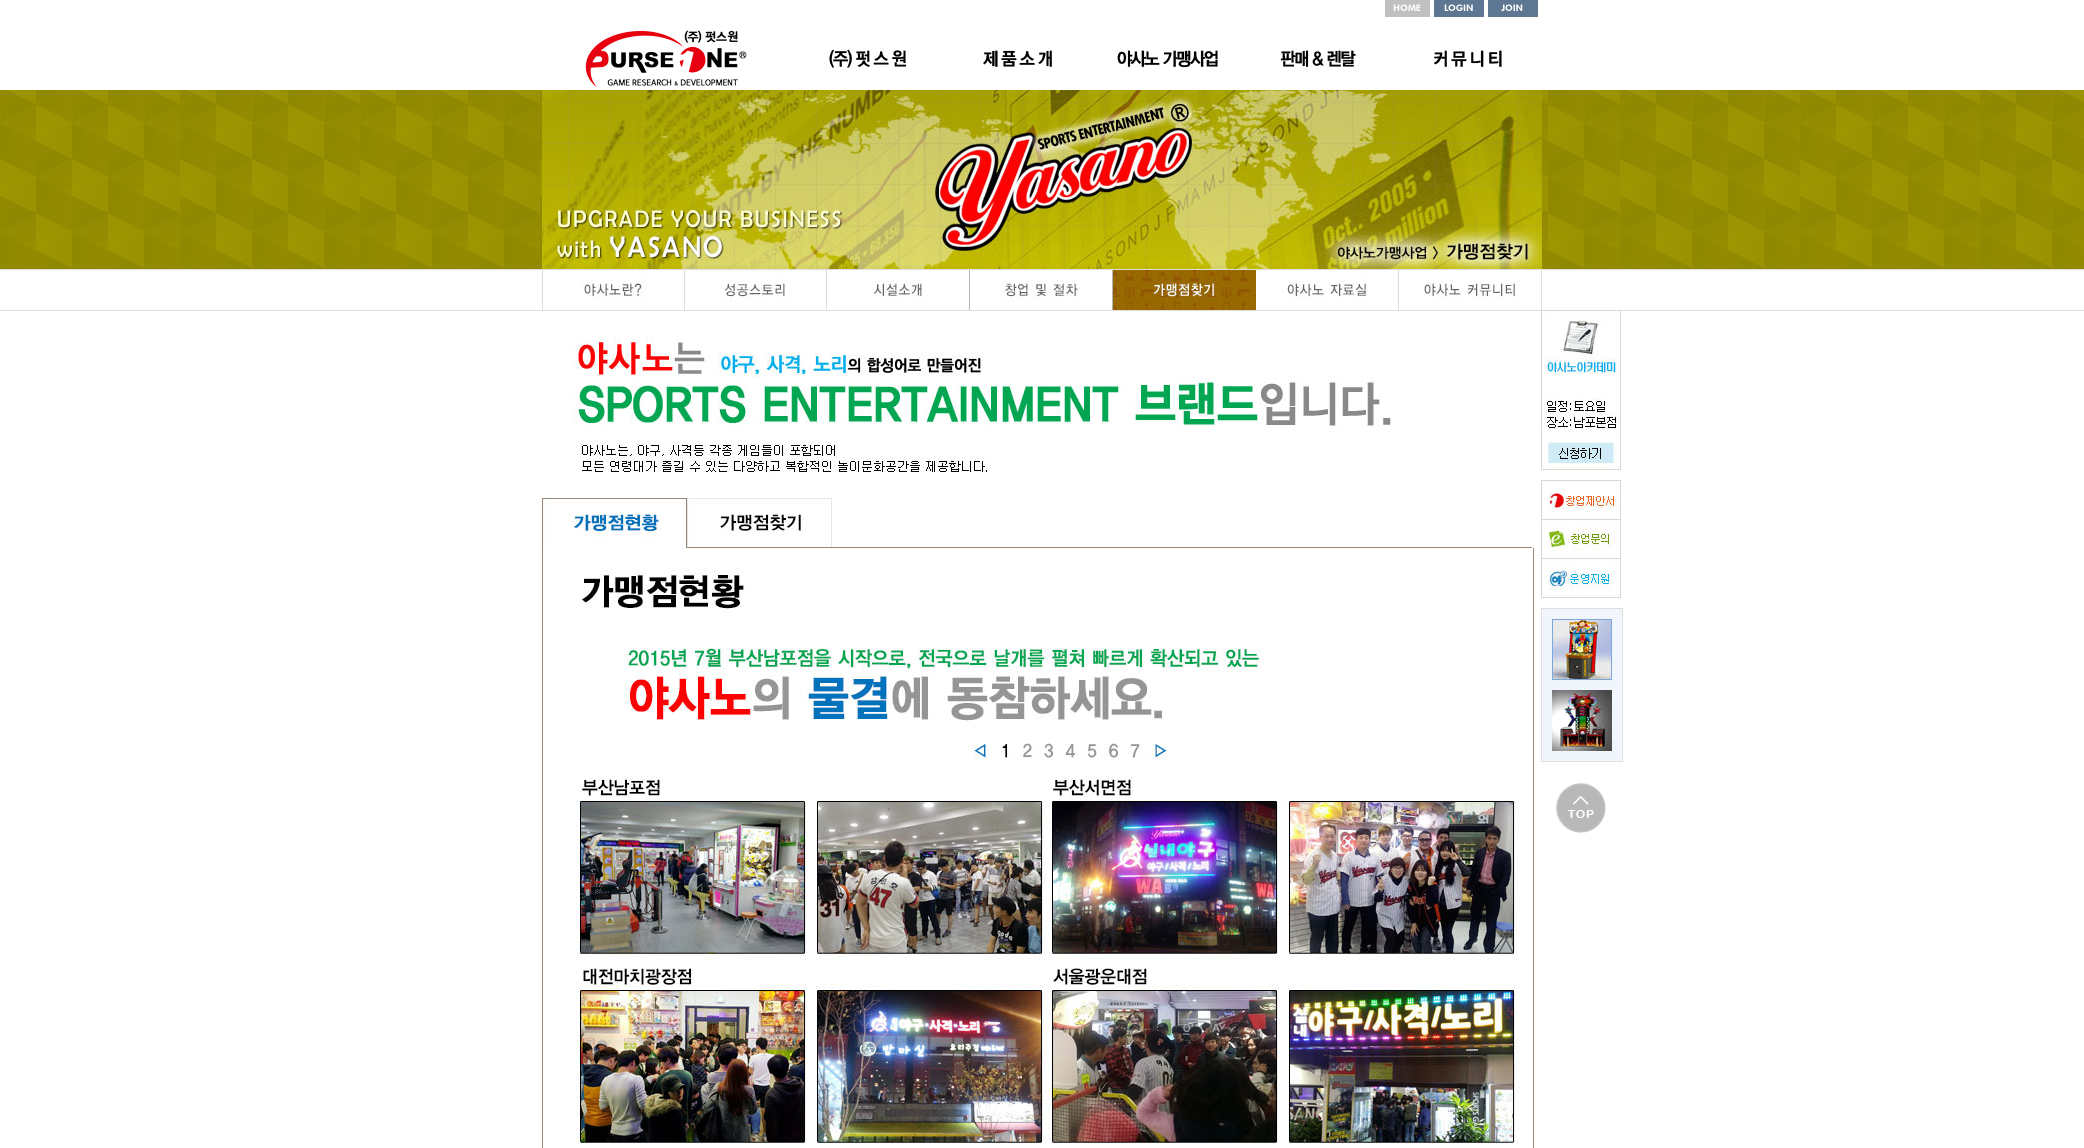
import math
import cairo


def paste(ctx, path, x, y, w, h):
	ctx.save()
	ctx.set_source_surface(cairo.ImageSurface.create_from_png(path), x, y)
	ctx.rectangle(x, y, w, h)
	ctx.fill()
	ctx.restore()

def draw(ctx):
	ctx.set_source_rgb(1, 1, 1)
	ctx.paint()
	paste(ctx, 'media/1.png', 1385, 0, 45, 17)
	paste(ctx, 'media/2.png', 1434, 0, 50, 17)
	paste(ctx, 'media/3.png', 1488, 0, 50, 17)
	paste(ctx, 'media/4.png', 585, 30, 162, 58)
	paste(ctx, 'media/5.png', 829, 49, 78, 19)
	paste(ctx, 'media/6.png', 983, 50, 69, 17)
	paste(ctx, 'media/7.png', 1117, 50, 101, 18)
	paste(ctx, 'media/8.png', 1280, 50, 76, 17)
	paste(ctx, 'media/9.png', 1434, 50, 68, 17)
	ctx.set_source_rgb(0.867, 0.867, 0.867)
	ctx.rectangle(0, 310, 2084, 1)
	ctx.fill()
	paste(ctx, 'media/10.png', 1541, 310, 80, 160)
	paste(ctx, 'media/11.png', 1541, 480, 80, 39)
	paste(ctx, 'media/12.png', 1541, 519, 80, 39)
	paste(ctx, 'media/13.png', 1541, 558, 80, 40)
	ctx.set_source_rgb(0.941, 0.961, 0.984)
	ctx.rectangle(1541.5, 608.5, 81, 153)
	ctx.fill_preserve()
	ctx.set_source_rgb(0.871, 0.871, 0.871)
	ctx.set_line_width(1)
	ctx.stroke()
	paste(ctx, 'media/14.png', 1552, 619, 60, 61)
	paste(ctx, 'media/15.png', 1552, 690, 60, 61)
	paste(ctx, 'media/16.png', 1556, 783, 50, 50)
	paste(ctx, 'media/17.png', 0, 90, 2084, 179)
	paste(ctx, 'media/18.png', 542, 90, 1000, 179)
	ctx.set_source_rgb(0.867, 0.867, 0.867)
	ctx.rectangle(0, 269, 2084, 1)
	ctx.fill()
	paste(ctx, 'media/19.png', 542, 270, 143, 40)
	paste(ctx, 'media/20.png', 723, 270, 104, 40)
	paste(ctx, 'media/21.png', 869, 270, 101, 40)
	paste(ctx, 'media/22.png', 1002, 270, 111, 40)
	paste(ctx, 'media/23.png', 1113, 270, 143, 40)
	paste(ctx, 'media/24.png', 1285, 270, 114, 40)
	paste(ctx, 'media/25.png', 1424, 270, 118, 40)
	paste(ctx, 'media/26.png', 574, 337, 818, 136)
	ctx.set_source_rgb(0.608, 0.525, 0.451)
	ctx.rectangle(687, 547, 845, 1)
	ctx.fill()
	paste(ctx, 'media/27.png', 542, 498, 145, 50)
	paste(ctx, 'media/28.png', 687, 498, 145, 49)
	ctx.set_source_rgb(0.6, 0.525, 0.459)
	ctx.rectangle(1533, 548, 1, 600)
	ctx.fill()
	ctx.rectangle(542, 548, 1, 600)
	ctx.fill()
	paste(ctx, 'media/29.png', 575, 568, 944, 576)


surface = cairo.ImageSurface(cairo.FORMAT_RGB24, 2084, 1148)
ctx = cairo.Context(surface)
options = cairo.FontOptions()
options.set_hint_metrics(cairo.HINT_METRICS_OFF)
options.set_hint_style(cairo.HINT_STYLE_NONE)
ctx.set_font_options(options)
ctx.set_miter_limit(4)
draw(ctx)
surface.write_to_png('image.png')
